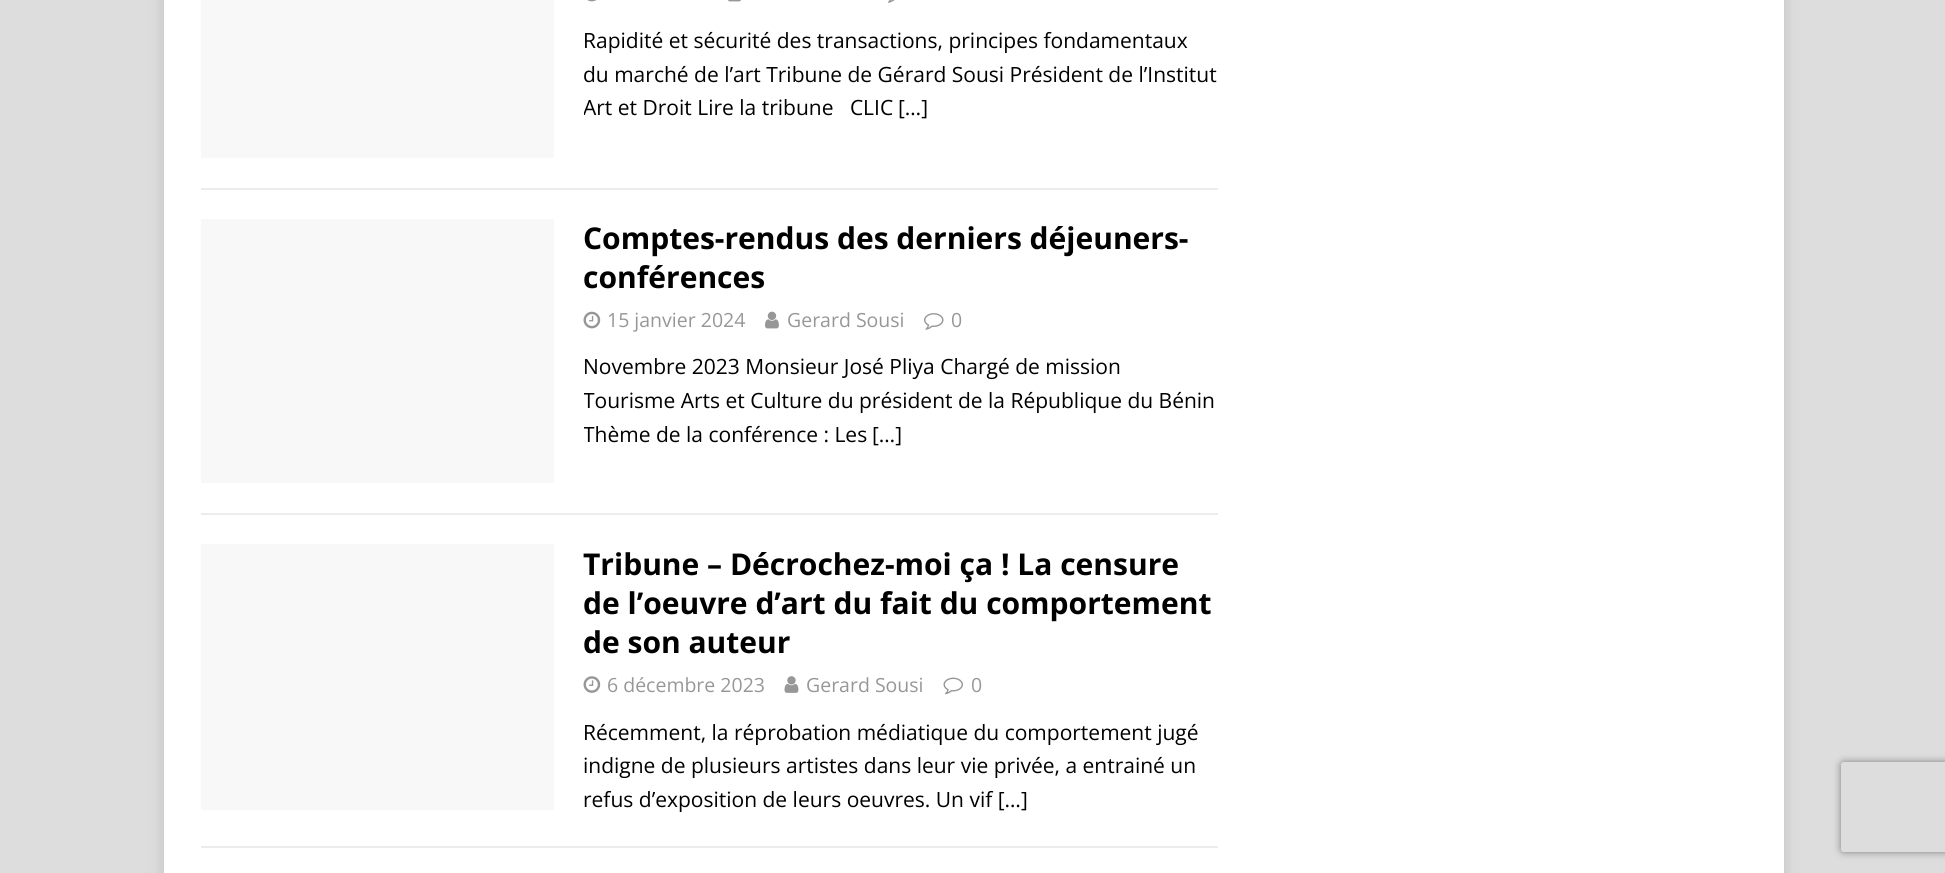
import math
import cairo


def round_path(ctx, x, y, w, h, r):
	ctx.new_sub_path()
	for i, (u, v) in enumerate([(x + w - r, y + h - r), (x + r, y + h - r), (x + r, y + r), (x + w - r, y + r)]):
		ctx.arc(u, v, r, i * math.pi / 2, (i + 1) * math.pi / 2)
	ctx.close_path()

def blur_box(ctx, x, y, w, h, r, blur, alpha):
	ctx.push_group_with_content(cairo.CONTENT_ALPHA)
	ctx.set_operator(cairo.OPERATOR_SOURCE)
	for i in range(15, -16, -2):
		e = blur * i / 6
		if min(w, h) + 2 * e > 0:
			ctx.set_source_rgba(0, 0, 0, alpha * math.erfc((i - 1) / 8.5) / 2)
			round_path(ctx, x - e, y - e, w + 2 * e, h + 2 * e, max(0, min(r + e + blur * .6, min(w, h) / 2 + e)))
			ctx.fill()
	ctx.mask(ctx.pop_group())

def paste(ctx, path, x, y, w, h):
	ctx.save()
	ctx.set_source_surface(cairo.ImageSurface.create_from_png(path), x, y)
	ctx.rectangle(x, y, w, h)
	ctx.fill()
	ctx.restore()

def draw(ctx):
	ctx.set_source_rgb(0.867, 0.867, 0.867)
	ctx.paint()
	ctx.set_source_rgb(0.196, 0.196, 0.196)
	blur_box(ctx, 164, -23, 1620, 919, 0, 7.5, 0.17)
	ctx.set_source_rgb(1, 1, 1)
	ctx.rectangle(164, 0, 1620, 873)
	ctx.fill()
	ctx.set_source_rgb(0.922, 0.922, 0.922)
	ctx.rectangle(201, 188, 1017, 2)
	ctx.fill()
	ctx.set_source_rgb(0.969, 0.969, 0.969)
	ctx.rectangle(201, 0, 353, 158)
	ctx.fill()
	paste(ctx, 'media/1.png', 587, 0, 10, 2)
	paste(ctx, 'media/2.png', 728, 0, 13, 2)
	paste(ctx, 'media/3.png', 887, 0, 8, 3)
	ctx.select_font_face('Open Sans')
	ctx.set_font_size(21)
	ctx.set_source_rgb(0, 0, 0)
	ctx.move_to(583, 48)
	ctx.show_text('Rapidité et sécurité des transactions, principes fondamentaux')
	ctx.move_to(583, 82)
	ctx.show_text('du marché de l’art Tribune de Gérard Sousi Président de l’Institut')
	ctx.save()
	ctx.rectangle(584, 24, 634, 101)
	ctx.clip()
	ctx.move_to(583, 115)
	ctx.show_text('Art et Droit Lire la tribune   CLIC')
	ctx.restore()
	ctx.move_to(898, 115)
	ctx.show_text('[…]')
	ctx.set_source_rgb(0.922, 0.922, 0.922)
	ctx.rectangle(201, 513, 1017, 2)
	ctx.fill()
	ctx.set_source_rgb(0.969, 0.969, 0.969)
	ctx.rectangle(201, 219, 353, 264)
	ctx.fill()
	ctx.select_font_face('Open Sans', cairo.FONT_SLANT_NORMAL, cairo.FONT_WEIGHT_BOLD)
	ctx.set_font_size(30)
	ctx.set_source_rgb(0, 0, 0)
	ctx.move_to(583, 249)
	ctx.show_text('Comptes-rendus des derniers déjeuners-')
	ctx.move_to(583, 288)
	ctx.show_text('conférences')
	paste(ctx, 'media/4.png', 583, 311, 18, 18)
	ctx.select_font_face('Open Sans')
	ctx.set_font_size(19.5)
	ctx.set_source_rgb(0.592, 0.592, 0.592)
	ctx.move_to(607, 327)
	ctx.show_text('15 janvier 2024')
	paste(ctx, 'media/5.png', 765, 311, 14, 18)
	ctx.move_to(787, 327)
	ctx.show_text('Gerard Sousi')
	paste(ctx, 'media/6.png', 924, 313, 20, 17)
	ctx.move_to(951, 327)
	ctx.show_text('0')
	ctx.set_font_size(21)
	ctx.set_source_rgb(0, 0, 0)
	ctx.move_to(583, 374)
	ctx.show_text('Novembre 2023 Monsieur José Pliya Chargé de mission')
	ctx.save()
	ctx.rectangle(584, 351, 634, 101)
	ctx.clip()
	ctx.move_to(583, 408)
	ctx.show_text('Tourisme Arts et Culture du président de la République du Bénin')
	ctx.move_to(583, 442)
	ctx.show_text('Thème de la conférence : Les')
	ctx.restore()
	ctx.move_to(872, 442)
	ctx.show_text('[…]')
	ctx.set_source_rgb(0.922, 0.922, 0.922)
	ctx.rectangle(201, 846, 1017, 2)
	ctx.fill()
	ctx.set_source_rgb(0.969, 0.969, 0.969)
	ctx.rectangle(201, 544, 353, 266)
	ctx.fill()
	ctx.select_font_face('Open Sans', cairo.FONT_SLANT_NORMAL, cairo.FONT_WEIGHT_BOLD)
	ctx.set_font_size(30)
	ctx.set_source_rgb(0, 0, 0)
	for x, y, s in [
		(583, 575, 'Tribune – Décrochez-moi ça ! La censure'),
		(583, 614, 'de l’oeuvre d’art du fait du comportement'),
		(583, 653, 'de son auteur'),
	]:
		ctx.move_to(x, y)
		ctx.show_text(s)
	paste(ctx, 'media/7.png', 583, 676, 18, 17)
	ctx.select_font_face('Open Sans')
	ctx.set_font_size(19.5)
	ctx.set_source_rgb(0.592, 0.592, 0.592)
	ctx.move_to(607, 692)
	ctx.show_text('6 décembre 2023')
	paste(ctx, 'media/8.png', 784, 676, 15, 17)
	ctx.move_to(806, 692)
	ctx.show_text('Gerard Sousi')
	paste(ctx, 'media/9.png', 943, 677, 20, 18)
	ctx.move_to(971, 692)
	ctx.show_text('0')
	ctx.set_font_size(21)
	ctx.set_source_rgb(0, 0, 0)
	for x, y, s in [
		(583, 740, 'Récemment, la réprobation médiatique du comportement jugé'),
		(583, 773, 'indigne de plusieurs artistes dans leur vie privée, a entrainé un'),
		(583, 807, 'refus d’exposition de leurs oeuvres. Un vif […]'),
	]:
		ctx.move_to(x, y)
		ctx.show_text(s)
	ctx.save()
	ctx.set_fill_rule(cairo.FILL_RULE_EVEN_ODD)
	ctx.new_path()
	ctx.move_to(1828, 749)
	ctx.line_to(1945, 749)
	ctx.line_to(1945, 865)
	ctx.line_to(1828, 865)
	ctx.close_path()
	ctx.move_to(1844, 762)
	ctx.line_to(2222, 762)
	ctx.curve_to(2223.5, 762, 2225, 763.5, 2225, 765)
	ctx.line_to(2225, 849)
	ctx.curve_to(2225, 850.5, 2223.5, 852, 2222, 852)
	ctx.line_to(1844, 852)
	ctx.curve_to(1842.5, 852, 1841, 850.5, 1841, 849)
	ctx.line_to(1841, 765)
	ctx.curve_to(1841, 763.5, 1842.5, 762, 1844, 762)
	ctx.close_path()
	ctx.clip()
	ctx.set_source_rgb(0.502, 0.502, 0.502)
	blur_box(ctx, 1841, 762, 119, 90, 3, 4, 1)
	ctx.restore()


surface = cairo.ImageSurface(cairo.FORMAT_RGB24, 1945, 873)
ctx = cairo.Context(surface)
options = cairo.FontOptions()
options.set_hint_metrics(cairo.HINT_METRICS_OFF)
options.set_hint_style(cairo.HINT_STYLE_NONE)
ctx.set_font_options(options)
ctx.set_miter_limit(4)
draw(ctx)
surface.write_to_png('image.png')
